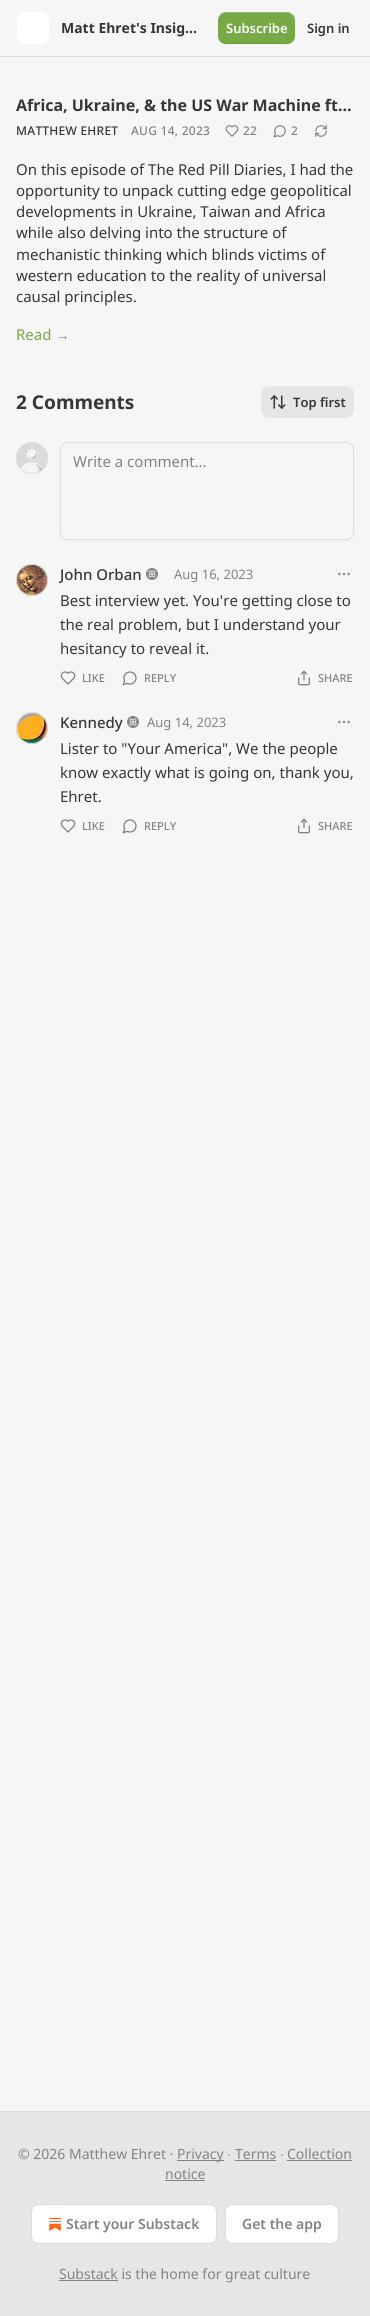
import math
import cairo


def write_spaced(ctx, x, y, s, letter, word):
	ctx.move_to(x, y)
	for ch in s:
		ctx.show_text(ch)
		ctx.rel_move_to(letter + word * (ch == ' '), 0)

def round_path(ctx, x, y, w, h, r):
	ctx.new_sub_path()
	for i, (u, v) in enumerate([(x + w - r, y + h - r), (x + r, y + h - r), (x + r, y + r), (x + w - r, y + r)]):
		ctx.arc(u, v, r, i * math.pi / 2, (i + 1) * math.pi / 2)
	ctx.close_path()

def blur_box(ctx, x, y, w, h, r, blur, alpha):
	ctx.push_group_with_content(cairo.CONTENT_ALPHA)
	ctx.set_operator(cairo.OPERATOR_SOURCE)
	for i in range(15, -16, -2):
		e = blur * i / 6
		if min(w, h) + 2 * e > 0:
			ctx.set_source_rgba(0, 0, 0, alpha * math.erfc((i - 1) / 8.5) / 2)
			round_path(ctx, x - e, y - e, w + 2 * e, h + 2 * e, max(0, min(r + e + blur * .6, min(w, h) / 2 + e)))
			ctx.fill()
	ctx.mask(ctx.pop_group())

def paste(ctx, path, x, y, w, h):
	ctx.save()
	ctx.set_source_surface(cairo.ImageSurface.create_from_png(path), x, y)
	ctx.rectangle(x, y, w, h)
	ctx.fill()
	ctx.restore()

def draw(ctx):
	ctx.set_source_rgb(0.961, 0.961, 0.961)
	ctx.paint()
	ctx.set_source_rgb(0.867, 0.867, 0.867)
	ctx.rectangle(0, 56, 370, 1)
	ctx.fill()
	ctx.set_source_rgb(1, 1, 1)
	round_path(ctx, 17, 12, 32, 32, 8)
	ctx.fill()
	ctx.select_font_face('Noto Sans', cairo.FONT_SLANT_NORMAL, cairo.FONT_WEIGHT_BOLD)
	ctx.set_font_size(14)
	ctx.set_source_rgb(0.212, 0.216, 0.216)
	ctx.move_to(61, 33)
	ctx.show_text('Matt Ehret\'s Insig…')
	ctx.set_source_rgb(0.471, 0.663, 0.278)
	round_path(ctx, 218, 12, 77, 32, 8)
	ctx.fill()
	ctx.set_source_rgba(0, 0, 0, 0.1)
	ctx.new_path()
	ctx.move_to(218, 35)
	ctx.curve_to(218, 46, 228, 44, 236, 44)
	ctx.line_to(277, 44)
	ctx.curve_to(285, 44, 295, 46, 295, 35)
	ctx.curve_to(295, 39, 291, 43, 287, 43)
	ctx.line_to(226, 43)
	ctx.curve_to(222, 43, 218, 39, 218, 35)
	ctx.close_path()
	ctx.fill()
	ctx.set_source_rgba(1, 1, 1, 0.2)
	ctx.new_path()
	ctx.move_to(226, 13)
	ctx.line_to(287, 13)
	ctx.curve_to(291, 13, 295, 17, 295, 21)
	ctx.curve_to(295, 10, 285, 12, 277, 12)
	ctx.line_to(236, 12)
	ctx.curve_to(228, 12, 218, 10, 218, 21)
	ctx.curve_to(218, 17, 222, 13, 226, 13)
	ctx.close_path()
	ctx.fill()
	ctx.select_font_face('Noto Sans SemiBold')
	ctx.set_font_size(13)
	ctx.set_source_rgb(1, 1, 1)
	ctx.move_to(226, 33)
	ctx.show_text('Subscribe')
	ctx.set_source_rgb(0.212, 0.216, 0.216)
	ctx.move_to(307, 33)
	ctx.show_text('Sign in')
	ctx.select_font_face('Noto Sans', cairo.FONT_SLANT_NORMAL, cairo.FONT_WEIGHT_BOLD)
	ctx.set_font_size(16)
	ctx.move_to(16, 111)
	ctx.show_text('Africa, Ukraine, & the US War Machine ft…')
	ctx.select_font_face('Noto Sans Medium')
	ctx.set_font_size(12)
	write_spaced(ctx, 16, 135, 'MATTHEW EHRET', 0.25, 0)
	ctx.set_source_rgb(0.51, 0.514, 0.514)
	write_spaced(ctx, 131, 135, 'AUG 14, 2023', 0.25, 0)
	paste(ctx, 'media/1.png', 225, 125, 14, 12)
	write_spaced(ctx, 243, 135, '22', 0.25, 0)
	paste(ctx, 'media/2.png', 273, 125, 13, 13)
	write_spaced(ctx, 291, 135, '2', 0.25, 0)
	paste(ctx, 'media/3.png', 315, 125, 12, 12)
	ctx.select_font_face('Noto Sans')
	ctx.set_font_size(15)
	ctx.set_source_rgb(0.212, 0.216, 0.216)
	for x, y, s in [
		(16, 175, 'On this episode of The Red Pill Diaries, I had the'),
		(16, 196, 'opportunity to unpack cutting edge geopolitical'),
		(16, 217, 'developments in Ukraine, Taiwan and Africa'),
		(16, 238, 'while also delving into the structure of'),
		(16, 260, 'mechanistic thinking which blinds victims of'),
		(16, 281, 'western education to the reality of universal'),
		(16, 302, 'causal principles.'),
	]:
		ctx.move_to(x, y)
		ctx.show_text(s)
	ctx.set_source_rgb(0.471, 0.663, 0.278)
	ctx.move_to(16, 340)
	ctx.show_text('Read')
	ctx.select_font_face('Liberation Sans')
	ctx.move_to(55, 340)
	ctx.show_text('→')
	ctx.select_font_face('Noto Sans', cairo.FONT_SLANT_NORMAL, cairo.FONT_WEIGHT_BOLD)
	ctx.set_font_size(19)
	ctx.set_source_rgb(0.212, 0.216, 0.216)
	ctx.move_to(16, 409)
	ctx.show_text('2 Comments')
	ctx.set_source_rgb(0.902, 0.902, 0.902)
	round_path(ctx, 261, 386, 93, 32, 8)
	ctx.fill()
	paste(ctx, 'media/4.png', 270, 395, 16, 14)
	ctx.select_font_face('Noto Sans SemiBold')
	ctx.set_font_size(13)
	ctx.set_source_rgb(0.212, 0.216, 0.216)
	ctx.move_to(293, 407)
	ctx.show_text('Top first')
	ctx.new_path()
	ctx.arc(32, 458, 15.5, 0, 2 * math.pi)
	ctx.set_source_rgb(0.867, 0.867, 0.867)
	ctx.set_line_width(1)
	ctx.stroke()
	paste(ctx, 'media/5.png', 16, 442, 32, 32)
	ctx.arc(32, 458, 15.5, 0, 2 * math.pi)
	ctx.stroke()
	ctx.set_source_rgb(0, 0, 0)
	blur_box(ctx, 60, 443, 294, 98, 8, 1, 0.05)
	ctx.set_source_rgb(0.961, 0.961, 0.961)
	round_path(ctx, 60.5, 442.5, 293, 97, 7.5)
	ctx.fill_preserve()
	ctx.set_source_rgb(0.867, 0.867, 0.867)
	ctx.stroke()
	ctx.select_font_face('Noto Sans')
	ctx.set_font_size(15)
	ctx.set_source_rgb(0.51, 0.514, 0.514)
	ctx.move_to(73, 467)
	ctx.show_text('Write a comment...')
	ctx.new_path()
	ctx.arc(32, 580, 15.5, 0, 2 * math.pi)
	ctx.set_source_rgb(0.867, 0.867, 0.867)
	ctx.stroke()
	paste(ctx, 'media/6.png', 16, 564, 32, 32)
	ctx.arc(32, 580, 15.5, 0, 2 * math.pi)
	ctx.stroke()
	ctx.select_font_face('Noto Sans Medium')
	ctx.set_source_rgb(0.212, 0.216, 0.216)
	ctx.move_to(60, 580)
	ctx.show_text('John Orban')
	paste(ctx, 'media/7.png', 146, 568, 12, 12)
	ctx.select_font_face('Noto Sans')
	ctx.set_font_size(13)
	ctx.set_source_rgb(0.51, 0.514, 0.514)
	ctx.move_to(174, 579)
	ctx.show_text('Aug 16, 2023')
	ctx.new_path()
	ctx.arc(344, 574, 0.7, 0, 2 * math.pi)
	ctx.set_source_rgb(0.553, 0.553, 0.553)
	ctx.set_line_width(1.3)
	ctx.stroke()
	ctx.arc(348.7, 574, 0.7, 0, 2 * math.pi)
	ctx.stroke()
	ctx.arc(339.3, 574, 0.7, 0, 2 * math.pi)
	ctx.stroke()
	ctx.set_font_size(15)
	ctx.set_source_rgb(0.212, 0.216, 0.216)
	for x, y, s in [
		(60, 606, 'Best interview yet. You\'re getting close to'),
		(60, 630, 'the real problem, but I understand your'),
		(60, 654, 'hesitancy to reveal it.'),
	]:
		ctx.move_to(x, y)
		ctx.show_text(s)
	paste(ctx, 'media/8.png', 60, 671, 16, 14)
	ctx.select_font_face('Noto Sans Medium')
	ctx.set_font_size(11)
	ctx.set_source_rgb(0.51, 0.514, 0.514)
	ctx.move_to(82, 682)
	ctx.show_text('LIKE')
	paste(ctx, 'media/9.png', 122, 671, 15, 15)
	ctx.move_to(144, 682)
	ctx.show_text('REPLY')
	paste(ctx, 'media/10.png', 298, 670, 12, 16)
	ctx.move_to(318, 682)
	ctx.show_text('SHARE')
	ctx.new_path()
	ctx.arc(32, 728, 15.5, 0, 2 * math.pi)
	ctx.set_source_rgb(0.867, 0.867, 0.867)
	ctx.set_line_width(1)
	ctx.stroke()
	paste(ctx, 'media/11.png', 16, 712, 32, 32)
	ctx.arc(32, 728, 15.5, 0, 2 * math.pi)
	ctx.stroke()
	ctx.set_font_size(15)
	ctx.set_source_rgb(0.212, 0.216, 0.216)
	ctx.move_to(60, 728)
	ctx.show_text('Kennedy')
	paste(ctx, 'media/7.png', 127, 716, 12, 12)
	ctx.select_font_face('Noto Sans')
	ctx.set_font_size(13)
	ctx.set_source_rgb(0.51, 0.514, 0.514)
	ctx.move_to(147, 727)
	ctx.show_text('Aug 14, 2023')
	ctx.new_path()
	ctx.arc(344, 722, 0.7, 0, 2 * math.pi)
	ctx.set_source_rgb(0.553, 0.553, 0.553)
	ctx.set_line_width(1.3)
	ctx.stroke()
	ctx.arc(348.7, 722, 0.7, 0, 2 * math.pi)
	ctx.stroke()
	ctx.arc(339.3, 722, 0.7, 0, 2 * math.pi)
	ctx.stroke()
	ctx.set_font_size(15)
	ctx.set_source_rgb(0.212, 0.216, 0.216)
	for x, y, s in [
		(60, 754, 'Lister to "Your America", We the people'),
		(60, 778, 'know exactly what is going on, thank you,'),
		(60, 802, 'Ehret.'),
	]:
		ctx.move_to(x, y)
		ctx.show_text(s)
	paste(ctx, 'media/8.png', 60, 819, 16, 14)
	ctx.select_font_face('Noto Sans Medium')
	ctx.set_font_size(11)
	ctx.set_source_rgb(0.51, 0.514, 0.514)
	ctx.move_to(82, 830)
	ctx.show_text('LIKE')
	paste(ctx, 'media/9.png', 122, 819, 15, 15)
	ctx.move_to(144, 830)
	ctx.show_text('REPLY')
	paste(ctx, 'media/10.png', 298, 818, 12, 16)
	ctx.move_to(318, 830)
	ctx.show_text('SHARE')
	ctx.set_source_rgb(0.902, 0.902, 0.902)
	ctx.rectangle(0, 2112, 370, 204)
	ctx.fill()
	ctx.set_source_rgb(0.867, 0.867, 0.867)
	ctx.rectangle(0, 2111, 370, 1)
	ctx.fill()
	ctx.select_font_face('Noto Sans')
	ctx.set_font_size(14)
	ctx.set_source_rgb(0.51, 0.514, 0.514)
	ctx.move_to(18, 2159)
	ctx.show_text('© 2026 Matthew Ehret ·')
	ctx.rectangle(177, 2160, 47, 1)
	ctx.fill()
	ctx.move_to(177, 2159)
	ctx.show_text('Privacy')
	ctx.select_font_face('Liberation Sans')
	ctx.move_to(227, 2159)
	ctx.show_text('∙')
	ctx.select_font_face('Noto Sans')
	ctx.move_to(235, 2159)
	ctx.show_text('Terms')
	ctx.rectangle(235, 2160, 41, 1)
	ctx.fill()
	ctx.select_font_face('Liberation Sans')
	ctx.move_to(280, 2159)
	ctx.show_text('∙')
	ctx.select_font_face('Noto Sans')
	ctx.move_to(287, 2159)
	ctx.show_text('Collection')
	ctx.rectangle(287, 2160, 65, 1)
	ctx.fill()
	ctx.move_to(165, 2179)
	ctx.show_text('notice')
	ctx.rectangle(165, 2180, 40, 1)
	ctx.fill()
	ctx.set_source_rgb(1, 1, 1)
	round_path(ctx, 31.5, 2204.5, 185, 39, 7.5)
	ctx.fill_preserve()
	ctx.set_source_rgb(0.867, 0.867, 0.867)
	ctx.set_line_width(1)
	ctx.stroke()
	paste(ctx, 'media/12.png', 49, 2218, 12, 13)
	ctx.select_font_face('Noto Sans SemiBold')
	ctx.set_source_rgb(0.51, 0.514, 0.514)
	ctx.move_to(66, 2229)
	ctx.show_text('Start your Substack')
	ctx.set_source_rgb(1, 1, 1)
	round_path(ctx, 225.5, 2204.5, 113, 39, 7.5)
	ctx.fill_preserve()
	ctx.set_source_rgb(0.867, 0.867, 0.867)
	ctx.stroke()
	ctx.set_source_rgb(0.51, 0.514, 0.514)
	ctx.move_to(242, 2229)
	ctx.show_text('Get the app')
	ctx.rectangle(59, 2280, 59, 1)
	ctx.fill()
	ctx.select_font_face('Noto Sans')
	ctx.move_to(59, 2279)
	ctx.show_text('Substack is the home for great culture')


surface = cairo.ImageSurface(cairo.FORMAT_RGB24, 370, 2316)
ctx = cairo.Context(surface)
options = cairo.FontOptions()
options.set_hint_metrics(cairo.HINT_METRICS_OFF)
options.set_hint_style(cairo.HINT_STYLE_NONE)
ctx.set_font_options(options)
ctx.set_miter_limit(4)
draw(ctx)
surface.write_to_png('image.png')
